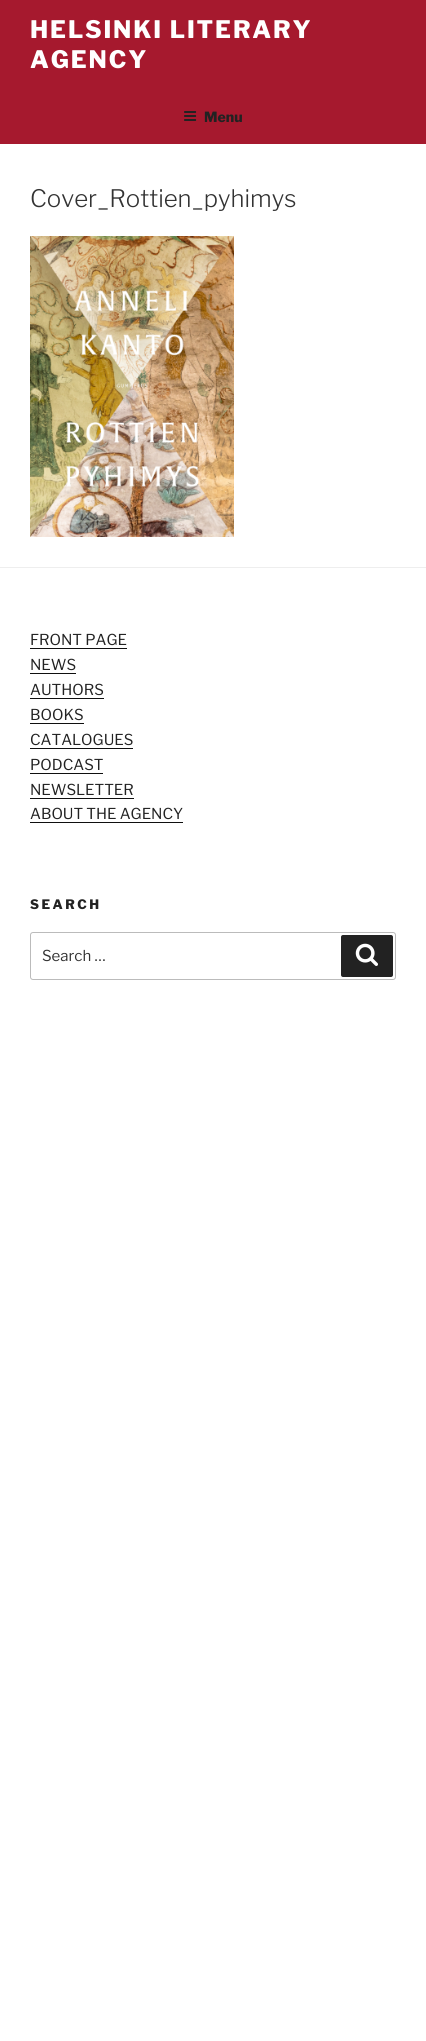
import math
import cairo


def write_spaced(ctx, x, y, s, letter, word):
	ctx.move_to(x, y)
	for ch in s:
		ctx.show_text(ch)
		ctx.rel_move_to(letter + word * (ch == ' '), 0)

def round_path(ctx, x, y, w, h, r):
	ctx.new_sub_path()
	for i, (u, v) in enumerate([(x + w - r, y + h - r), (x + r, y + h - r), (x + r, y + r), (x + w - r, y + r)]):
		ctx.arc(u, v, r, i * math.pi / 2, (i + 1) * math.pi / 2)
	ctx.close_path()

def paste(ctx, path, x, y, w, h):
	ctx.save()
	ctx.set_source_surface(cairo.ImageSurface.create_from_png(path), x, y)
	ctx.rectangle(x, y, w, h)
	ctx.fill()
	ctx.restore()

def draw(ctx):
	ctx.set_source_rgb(1, 1, 1)
	ctx.paint()
	ctx.set_source_rgb(0.651, 0.098, 0.18)
	ctx.rectangle(0, 0, 426, 144)
	ctx.fill()
	ctx.select_font_face('Libre Franklin ExtraBold')
	ctx.set_font_size(24)
	ctx.set_source_rgb(1, 1, 1)
	write_spaced(ctx, 30, 38, 'HELSINKI LITERARY', 1.9, 0)
	write_spaced(ctx, 30, 68, 'AGENCY', 1.9, 0)
	paste(ctx, 'media/1.png', 184, 111, 13, 10)
	ctx.set_font_size(14)
	ctx.set_source_rgb(0.133, 0.133, 0.133)
	ctx.move_to(204, 122)
	ctx.show_text('Menu')
	ctx.select_font_face('Libre Franklin Light')
	ctx.set_font_size(24)
	ctx.set_source_rgb(0.2, 0.2, 0.2)
	ctx.move_to(30, 207)
	ctx.show_text('Cover_Rottien_pyhimys')
	paste(ctx, 'media/2.png', 30, 236, 204, 301)
	ctx.set_source_rgb(0.933, 0.933, 0.933)
	ctx.rectangle(0, 567, 426, 1)
	ctx.fill()
	ctx.select_font_face('Libre Franklin')
	ctx.set_font_size(15)
	ctx.set_source_rgb(0.133, 0.133, 0.133)
	ctx.move_to(30, 645)
	ctx.show_text('FRONT PAGE')
	ctx.set_source_rgb(0.059, 0.059, 0.059)
	ctx.rectangle(30, 648, 97, 1)
	ctx.fill()
	ctx.set_source_rgb(0.133, 0.133, 0.133)
	ctx.move_to(30, 670)
	ctx.show_text('NEWS')
	ctx.set_source_rgb(0.059, 0.059, 0.059)
	ctx.rectangle(30, 673, 46, 1)
	ctx.fill()
	ctx.set_source_rgb(0.133, 0.133, 0.133)
	ctx.move_to(30, 695)
	ctx.show_text('AUTHORS')
	ctx.set_source_rgb(0.059, 0.059, 0.059)
	ctx.rectangle(30, 698, 74, 1)
	ctx.fill()
	ctx.set_source_rgb(0.133, 0.133, 0.133)
	ctx.move_to(30, 720)
	ctx.show_text('BOOKS')
	ctx.set_source_rgb(0.059, 0.059, 0.059)
	ctx.rectangle(30, 723, 54, 1)
	ctx.fill()
	ctx.set_source_rgb(0.133, 0.133, 0.133)
	ctx.move_to(30, 745)
	ctx.show_text('CATALOGUES')
	ctx.set_source_rgb(0.059, 0.059, 0.059)
	ctx.rectangle(30, 748, 103, 1)
	ctx.fill()
	ctx.set_source_rgb(0.133, 0.133, 0.133)
	ctx.move_to(30, 770)
	ctx.show_text('PODCAST')
	ctx.set_source_rgb(0.059, 0.059, 0.059)
	ctx.rectangle(30, 773, 73, 1)
	ctx.fill()
	ctx.set_source_rgb(0.133, 0.133, 0.133)
	ctx.move_to(30, 795)
	ctx.show_text('NEWSLETTER')
	ctx.set_source_rgb(0.059, 0.059, 0.059)
	ctx.rectangle(30, 798, 104, 1)
	ctx.fill()
	ctx.set_source_rgb(0.133, 0.133, 0.133)
	ctx.move_to(30, 819)
	ctx.show_text('ABOUT THE AGENCY')
	ctx.set_source_rgb(0.059, 0.059, 0.059)
	ctx.rectangle(30, 822, 153, 1)
	ctx.fill()
	ctx.select_font_face('Libre Franklin ExtraBold')
	ctx.set_font_size(13)
	ctx.set_source_rgb(0.133, 0.133, 0.133)
	write_spaced(ctx, 30, 909, 'SEARCH', 2.5, 0)
	round_path(ctx, 30.5, 932.5, 365, 47, 2.5)
	ctx.set_source_rgb(0.733, 0.733, 0.733)
	ctx.set_line_width(1)
	ctx.stroke()
	ctx.select_font_face('Libre Franklin')
	ctx.set_font_size(15)
	ctx.set_source_rgb(0.2, 0.2, 0.2)
	ctx.move_to(42, 961)
	ctx.show_text('Search …')
	ctx.set_source_rgb(0.133, 0.133, 0.133)
	round_path(ctx, 341, 935, 52, 42, 2)
	ctx.fill()
	paste(ctx, 'media/3.png', 355, 943, 23, 23)


surface = cairo.ImageSurface(cairo.FORMAT_RGB24, 426, 2041)
ctx = cairo.Context(surface)
options = cairo.FontOptions()
options.set_hint_metrics(cairo.HINT_METRICS_OFF)
options.set_hint_style(cairo.HINT_STYLE_NONE)
ctx.set_font_options(options)
ctx.set_miter_limit(4)
draw(ctx)
surface.write_to_png('image.png')
